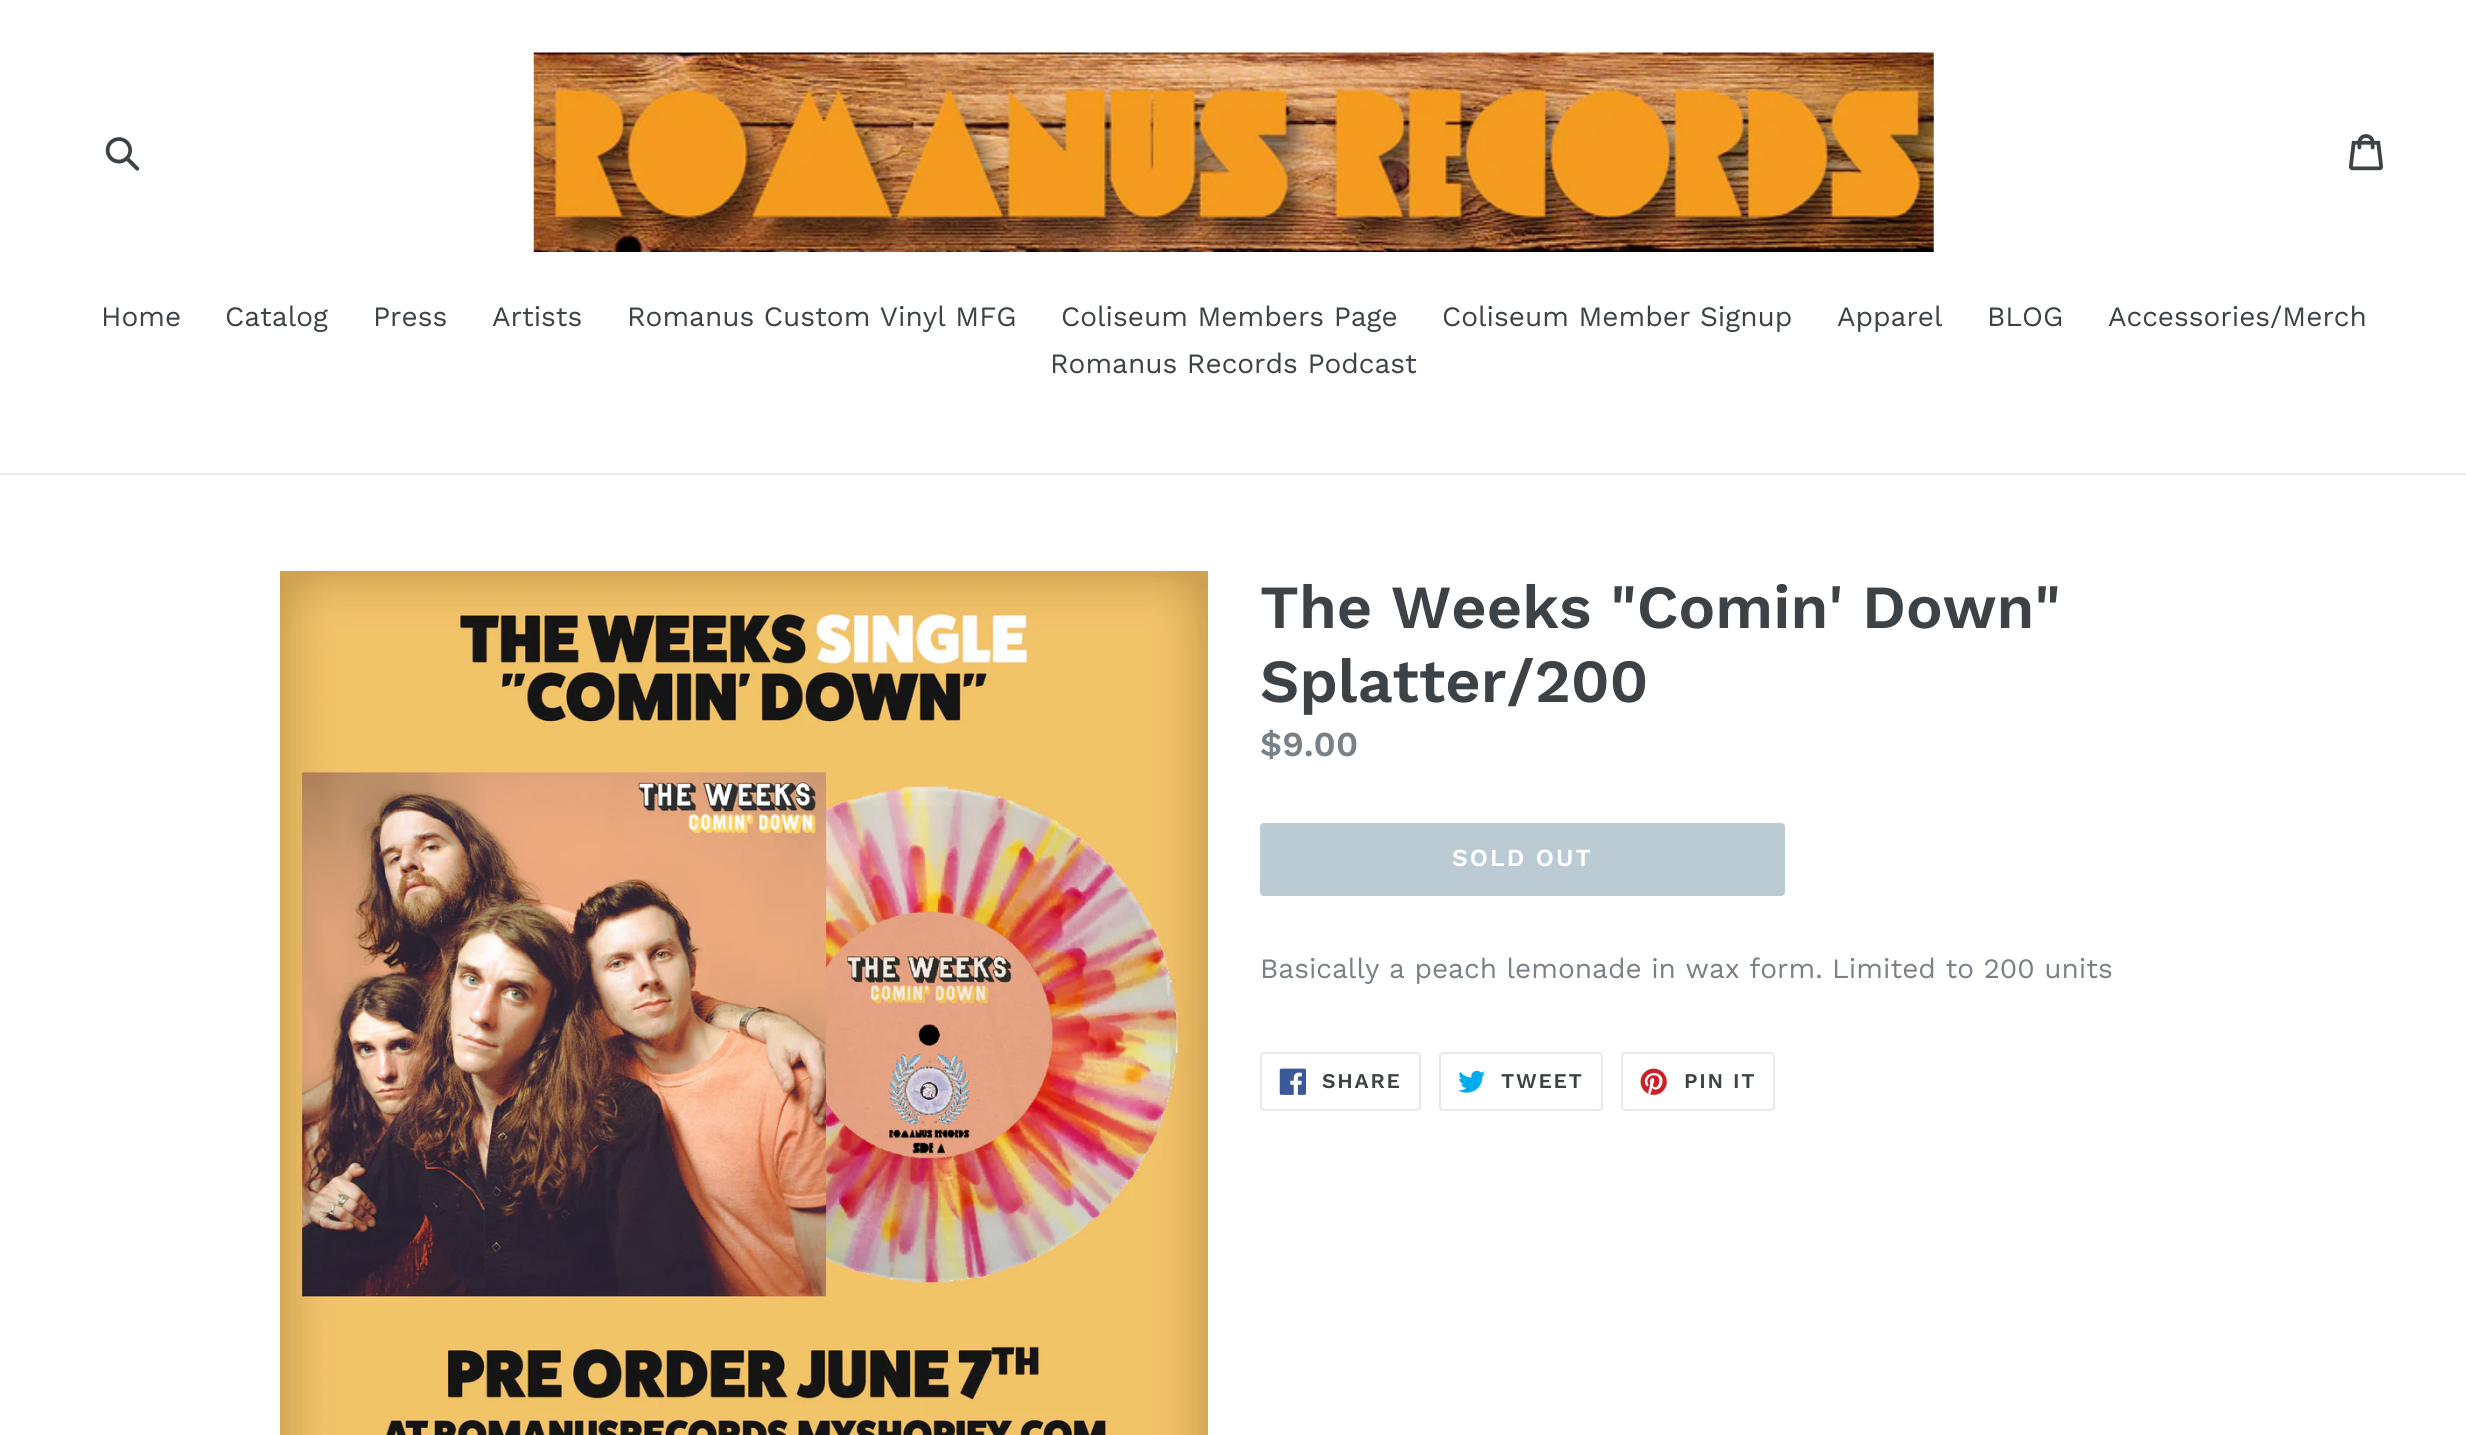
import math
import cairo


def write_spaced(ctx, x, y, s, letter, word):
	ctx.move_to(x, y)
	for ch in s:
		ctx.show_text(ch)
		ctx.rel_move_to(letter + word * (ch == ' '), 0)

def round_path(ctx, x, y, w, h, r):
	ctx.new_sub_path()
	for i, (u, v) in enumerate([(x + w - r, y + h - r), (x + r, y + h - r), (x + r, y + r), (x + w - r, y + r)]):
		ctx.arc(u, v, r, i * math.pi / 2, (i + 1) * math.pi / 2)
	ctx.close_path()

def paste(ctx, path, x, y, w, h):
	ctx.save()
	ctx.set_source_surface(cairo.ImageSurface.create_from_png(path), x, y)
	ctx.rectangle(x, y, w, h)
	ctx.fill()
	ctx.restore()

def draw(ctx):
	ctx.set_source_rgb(1, 1, 1)
	ctx.paint()
	paste(ctx, 'media/1.png', 105, 137, 35, 34)
	paste(ctx, 'media/2.png', 533, 52, 1401, 200)
	paste(ctx, 'media/3.png', 2349, 134, 34, 37)
	ctx.set_source_rgb(0.91, 0.914, 0.922)
	ctx.rectangle(0, 473, 2466, 2)
	ctx.fill()
	ctx.select_font_face('Work Sans')
	ctx.set_font_size(28)
	ctx.set_source_rgb(0.239, 0.259, 0.275)
	for x, y, s in [
		(101, 326, 'Home'),
		(225, 326, 'Catalog'),
		(373, 326, 'Press'),
		(492, 326, 'Artists'),
		(627, 326, 'Romanus Custom Vinyl MFG'),
		(1061, 326, 'Coliseum Members Page'),
		(1442, 326, 'Coliseum Member Signup'),
		(1837, 326, 'Apparel'),
		(1987, 326, 'BLOG'),
		(2108, 326, 'Accessories/Merch'),
		(1050, 373, 'Romanus Records Podcast'),
	]:
		ctx.move_to(x, y)
		ctx.show_text(s)
	paste(ctx, 'media/4.png', 280, 571, 928, 864)
	ctx.select_font_face('Work Sans SemiBold')
	ctx.set_font_size(61.25)
	ctx.move_to(1260, 628)
	ctx.show_text('The Weeks "Comin\' Down"')
	ctx.move_to(1260, 702)
	ctx.show_text('Splatter/200')
	ctx.set_font_size(35)
	ctx.set_source_rgb(0.471, 0.506, 0.533)
	ctx.move_to(1260, 756)
	ctx.show_text('$9.00')
	ctx.set_source_rgb(0.733, 0.796, 0.831)
	round_path(ctx, 1260, 823, 525, 73, 4)
	ctx.fill()
	ctx.set_font_size(24.5)
	ctx.set_source_rgb(1, 1, 1)
	write_spaced(ctx, 1452, 866, 'SOLD OUT', 2, 0)
	ctx.select_font_face('Work Sans')
	ctx.set_font_size(28)
	ctx.set_source_rgb(0.471, 0.506, 0.533)
	ctx.move_to(1260, 978)
	ctx.show_text('Basically a peach lemonade in wax form. Limited to 200 units')
	round_path(ctx, 1261, 1053, 159, 57, 3)
	ctx.set_source_rgb(0.91, 0.914, 0.922)
	ctx.stroke()
	paste(ctx, 'media/5.png', 1279, 1068, 27, 27)
	ctx.select_font_face('Work Sans SemiBold')
	ctx.set_font_size(21)
	ctx.set_source_rgb(0.239, 0.259, 0.275)
	write_spaced(ctx, 1322, 1088, 'SHARE', 1.75, 0)
	round_path(ctx, 1440, 1053, 162, 57, 3)
	ctx.set_source_rgb(0.91, 0.914, 0.922)
	ctx.stroke()
	paste(ctx, 'media/6.png', 1458, 1070, 27, 23)
	ctx.set_source_rgb(0.239, 0.259, 0.275)
	write_spaced(ctx, 1501, 1088, 'TWEET', 1.75, 0)
	round_path(ctx, 1622, 1053, 152, 57, 3)
	ctx.set_source_rgb(0.91, 0.914, 0.922)
	ctx.stroke()
	paste(ctx, 'media/7.png', 1640, 1068, 27, 27)
	ctx.set_source_rgb(0.239, 0.259, 0.275)
	write_spaced(ctx, 1684, 1088, 'PIN IT', 1.75, 0)


surface = cairo.ImageSurface(cairo.FORMAT_RGB24, 2466, 1435)
ctx = cairo.Context(surface)
options = cairo.FontOptions()
options.set_hint_metrics(cairo.HINT_METRICS_OFF)
options.set_hint_style(cairo.HINT_STYLE_NONE)
ctx.set_font_options(options)
ctx.set_miter_limit(4)
draw(ctx)
surface.write_to_png('image.png')
